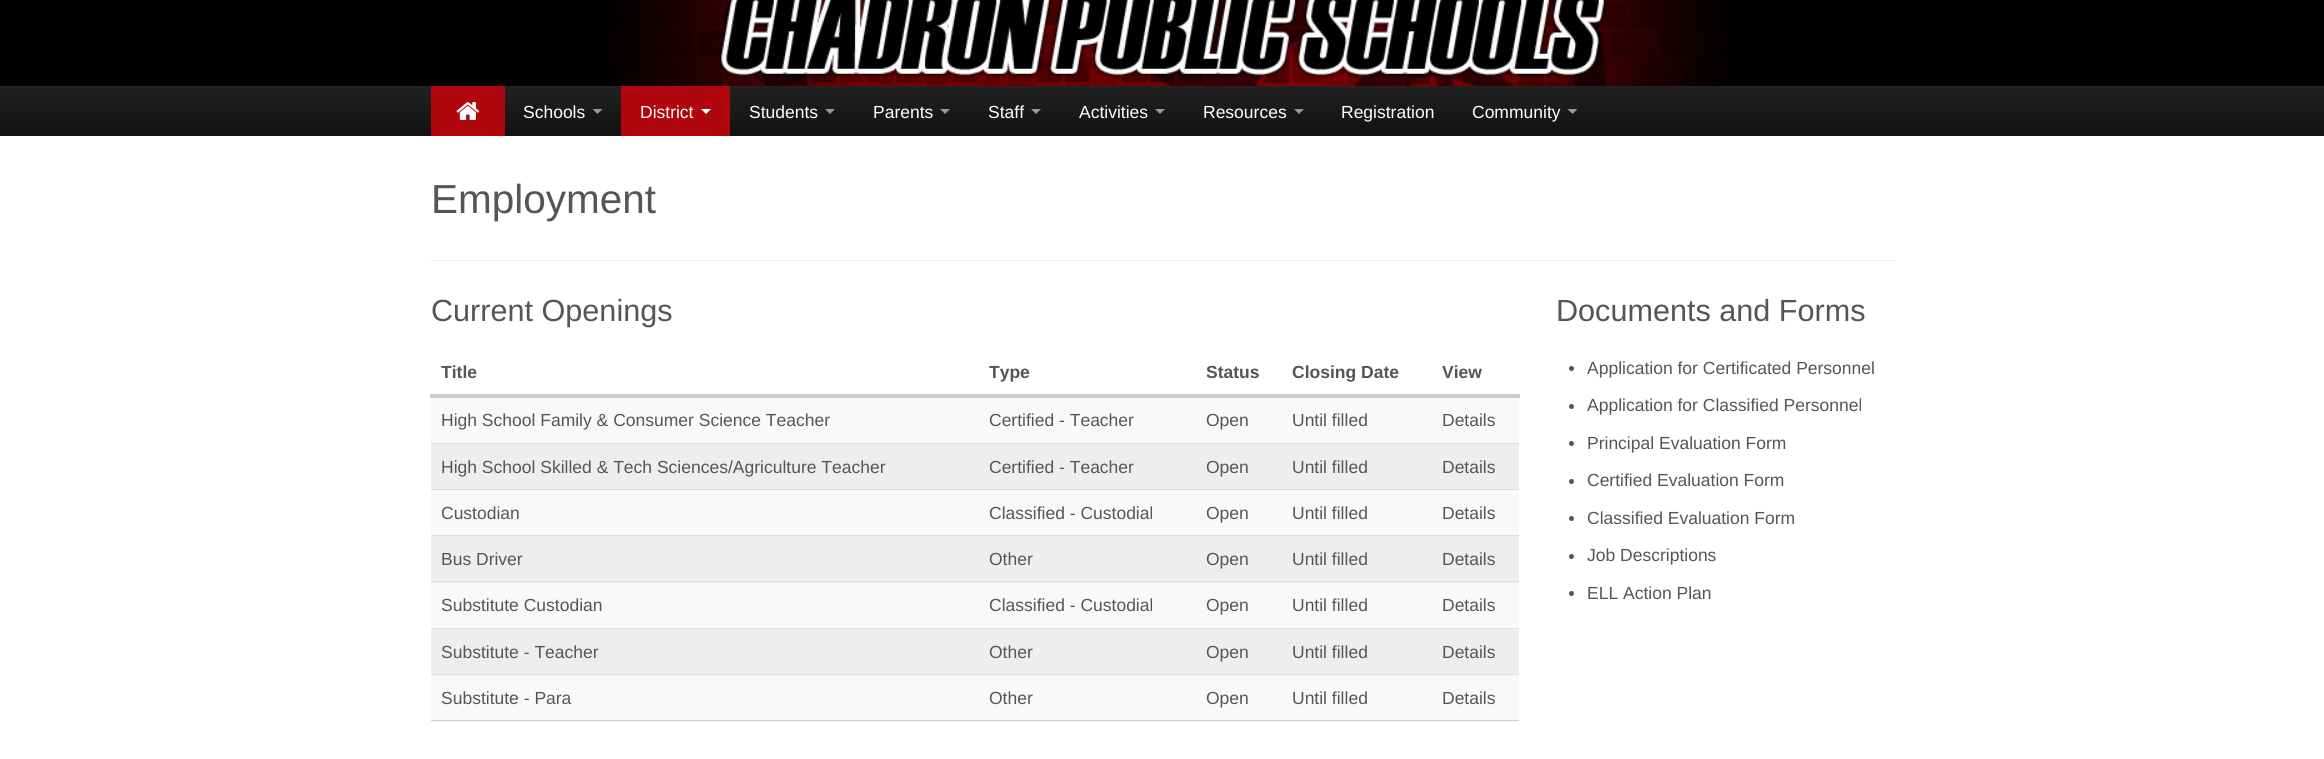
import math
import cairo


def paste(ctx, path, x, y, w, h):
	ctx.save()
	ctx.set_source_surface(cairo.ImageSurface.create_from_png(path), x, y)
	ctx.rectangle(x, y, w, h)
	ctx.fill()
	ctx.restore()

def draw(ctx):
	ctx.set_source_rgb(0.004, 0.004, 0.004)
	ctx.paint()
	paste(ctx, 'media/1.png', 611, 0, 1114, 86)
	gradient = cairo.LinearGradient(1163, 86, 1163, 136)
	gradient.add_color_stop_rgba(0, 0.133, 0.133, 0.133, 1)
	gradient.add_color_stop_rgba(1, 0.067, 0.067, 0.067, 1)
	ctx.set_source(gradient)
	ctx.rectangle(0, 86, 2324, 50)
	ctx.fill()
	ctx.set_source_rgb(0.686, 0.031, 0.051)
	ctx.rectangle(431, 86, 74, 50)
	ctx.fill()
	paste(ctx, 'media/2.png', 456, 102, 24, 18)
	ctx.select_font_face('Liberation Sans')
	ctx.set_font_size(17.5)
	ctx.set_source_rgb(1, 1, 1)
	ctx.move_to(523, 118)
	ctx.show_text('Schools')
	ctx.set_source_rgb(0.6, 0.6, 0.6)
	ctx.new_path()
	ctx.move_to(592.5, 109)
	ctx.line_to(602.5, 109)
	ctx.line_to(597.5, 114)
	ctx.close_path()
	ctx.fill()
	ctx.set_source_rgb(0.686, 0.031, 0.051)
	ctx.rectangle(621, 86, 109, 50)
	ctx.fill()
	ctx.set_source_rgb(1, 1, 1)
	ctx.move_to(640, 118)
	ctx.show_text('District')
	ctx.new_path()
	ctx.move_to(701, 109)
	ctx.line_to(711, 109)
	ctx.line_to(706, 114)
	ctx.close_path()
	ctx.fill()
	ctx.move_to(749, 118)
	ctx.show_text('Students')
	ctx.set_source_rgb(0.6, 0.6, 0.6)
	ctx.new_path()
	ctx.move_to(825, 109)
	ctx.line_to(835, 109)
	ctx.line_to(830, 114)
	ctx.close_path()
	ctx.fill()
	ctx.set_source_rgb(1, 1, 1)
	ctx.move_to(873, 118)
	ctx.show_text('Parents')
	ctx.set_source_rgb(0.6, 0.6, 0.6)
	ctx.new_path()
	ctx.move_to(940, 109)
	ctx.line_to(950, 109)
	ctx.line_to(945, 114)
	ctx.close_path()
	ctx.fill()
	ctx.set_source_rgb(1, 1, 1)
	ctx.move_to(988, 118)
	ctx.show_text('Staff')
	ctx.set_source_rgb(0.6, 0.6, 0.6)
	ctx.new_path()
	ctx.move_to(1031, 109)
	ctx.line_to(1041, 109)
	ctx.line_to(1036, 114)
	ctx.close_path()
	ctx.fill()
	ctx.set_source_rgb(1, 1, 1)
	ctx.move_to(1079, 118)
	ctx.show_text('Activities')
	ctx.set_source_rgb(0.6, 0.6, 0.6)
	ctx.new_path()
	ctx.move_to(1155, 109)
	ctx.line_to(1165, 109)
	ctx.line_to(1160, 114)
	ctx.close_path()
	ctx.fill()
	ctx.set_source_rgb(1, 1, 1)
	ctx.move_to(1203, 118)
	ctx.show_text('Resources')
	ctx.set_source_rgb(0.6, 0.6, 0.6)
	ctx.new_path()
	ctx.move_to(1294, 109)
	ctx.line_to(1304, 109)
	ctx.line_to(1299, 114)
	ctx.close_path()
	ctx.fill()
	ctx.set_source_rgb(1, 1, 1)
	ctx.move_to(1341, 118)
	ctx.show_text('Registration')
	ctx.move_to(1472, 118)
	ctx.show_text('Community')
	ctx.set_source_rgb(0.6, 0.6, 0.6)
	ctx.new_path()
	ctx.move_to(1567.5, 109)
	ctx.line_to(1577.5, 109)
	ctx.line_to(1572.5, 114)
	ctx.close_path()
	ctx.fill()
	ctx.set_source_rgb(1, 1, 1)
	ctx.rectangle(0, 136, 2324, 623)
	ctx.fill()
	ctx.set_source_rgb(0.933, 0.933, 0.933)
	ctx.rectangle(431, 260, 1463, 1)
	ctx.fill()
	ctx.set_font_size(40.5)
	ctx.set_source_rgb(0.333, 0.333, 0.333)
	ctx.move_to(431, 213)
	ctx.show_text('Employment')
	ctx.set_font_size(30.6)
	ctx.move_to(431, 321)
	ctx.show_text('Current Openings')
	ctx.select_font_face('Liberation Sans', cairo.FONT_SLANT_NORMAL, cairo.FONT_WEIGHT_BOLD)
	ctx.set_font_size(17.5)
	for x, y, s in [
		(441, 378, 'Title'),
		(989, 378, 'Type'),
		(1206, 378, 'Status'),
		(1292, 378, 'Closing Date'),
	]:
		ctx.move_to(x, y)
		ctx.show_text(s)
	ctx.set_source_rgb(0.8, 0.8, 0.8)
	ctx.rectangle(430, 394, 1090, 4)
	ctx.fill()
	ctx.set_source_rgb(0.333, 0.333, 0.333)
	ctx.move_to(1442, 378)
	ctx.show_text('View')
	ctx.set_source_rgb(0.976, 0.976, 0.976)
	ctx.rectangle(431, 398, 1088, 45)
	ctx.fill()
	ctx.select_font_face('Liberation Sans')
	ctx.set_source_rgb(0.333, 0.333, 0.333)
	for x, y, s in [
		(441, 426, 'High School Family & Consumer Science Teacher'),
		(989, 426, 'Certified - Teacher'),
		(1206, 426, 'Open'),
		(1292, 426, 'Until filled'),
		(1442, 426, 'Details'),
	]:
		ctx.move_to(x, y)
		ctx.show_text(s)
	ctx.set_source_rgb(0.933, 0.933, 0.933)
	ctx.rectangle(431, 444, 1088, 45)
	ctx.fill()
	ctx.set_source_rgb(0.333, 0.333, 0.333)
	for x, y, s in [
		(441, 473, 'High School Skilled & Tech Sciences/Agriculture Teacher'),
		(989, 473, 'Certified - Teacher'),
		(1206, 473, 'Open'),
		(1292, 473, 'Until filled'),
	]:
		ctx.move_to(x, y)
		ctx.show_text(s)
	ctx.set_source_rgb(0.867, 0.867, 0.867)
	ctx.rectangle(431, 443, 1088, 1)
	ctx.fill()
	ctx.set_source_rgb(0.333, 0.333, 0.333)
	ctx.move_to(1442, 473)
	ctx.show_text('Details')
	ctx.set_source_rgb(0.976, 0.976, 0.976)
	ctx.rectangle(431, 490, 1088, 45)
	ctx.fill()
	ctx.set_source_rgb(0.333, 0.333, 0.333)
	for x, y, s in [
		(441, 519, 'Custodian'),
		(989, 519, 'Classified - Custodial'),
		(1206, 519, 'Open'),
		(1292, 519, 'Until filled'),
	]:
		ctx.move_to(x, y)
		ctx.show_text(s)
	ctx.set_source_rgb(0.867, 0.867, 0.867)
	ctx.rectangle(431, 489, 1088, 1)
	ctx.fill()
	ctx.set_source_rgb(0.333, 0.333, 0.333)
	ctx.move_to(1442, 519)
	ctx.show_text('Details')
	ctx.set_source_rgb(0.933, 0.933, 0.933)
	ctx.rectangle(431, 536, 1088, 47)
	ctx.fill()
	ctx.set_source_rgb(0.333, 0.333, 0.333)
	for x, y, s in [
		(441, 565, 'Bus Driver'),
		(989, 565, 'Other'),
		(1206, 565, 'Open'),
		(1292, 565, 'Until filled'),
	]:
		ctx.move_to(x, y)
		ctx.show_text(s)
	ctx.set_source_rgb(0.867, 0.867, 0.867)
	ctx.rectangle(431, 535, 1088, 1)
	ctx.fill()
	ctx.set_source_rgb(0.333, 0.333, 0.333)
	ctx.move_to(1442, 565)
	ctx.show_text('Details')
	ctx.set_source_rgb(0.976, 0.976, 0.976)
	ctx.rectangle(431, 583, 1088, 45)
	ctx.fill()
	ctx.set_source_rgb(0.333, 0.333, 0.333)
	for x, y, s in [
		(441, 611, 'Substitute Custodian'),
		(989, 611, 'Classified - Custodial'),
		(1206, 611, 'Open'),
		(1292, 611, 'Until filled'),
	]:
		ctx.move_to(x, y)
		ctx.show_text(s)
	ctx.set_source_rgb(0.867, 0.867, 0.867)
	ctx.rectangle(431, 581, 1088, 1)
	ctx.fill()
	ctx.set_source_rgb(0.333, 0.333, 0.333)
	ctx.move_to(1442, 611)
	ctx.show_text('Details')
	ctx.set_source_rgb(0.933, 0.933, 0.933)
	ctx.rectangle(431, 629, 1088, 45)
	ctx.fill()
	ctx.set_source_rgb(0.333, 0.333, 0.333)
	for x, y, s in [
		(441, 658, 'Substitute - Teacher'),
		(989, 658, 'Other'),
		(1206, 658, 'Open'),
		(1292, 658, 'Until filled'),
	]:
		ctx.move_to(x, y)
		ctx.show_text(s)
	ctx.set_source_rgb(0.867, 0.867, 0.867)
	ctx.rectangle(431, 628, 1088, 1)
	ctx.fill()
	ctx.set_source_rgb(0.333, 0.333, 0.333)
	ctx.move_to(1442, 658)
	ctx.show_text('Details')
	ctx.set_source_rgb(0.8, 0.8, 0.8)
	ctx.rectangle(431, 720, 1088, 1)
	ctx.fill()
	ctx.set_source_rgb(0.976, 0.976, 0.976)
	ctx.rectangle(431, 675, 1088, 45)
	ctx.fill()
	ctx.set_source_rgb(0.333, 0.333, 0.333)
	for x, y, s in [
		(441, 704, 'Substitute - Para'),
		(989, 704, 'Other'),
		(1206, 704, 'Open'),
		(1292, 704, 'Until filled'),
	]:
		ctx.move_to(x, y)
		ctx.show_text(s)
	ctx.set_source_rgb(0.867, 0.867, 0.867)
	ctx.rectangle(431, 674, 1088, 1)
	ctx.fill()
	ctx.set_source_rgb(0.333, 0.333, 0.333)
	ctx.move_to(1442, 704)
	ctx.show_text('Details')
	ctx.set_font_size(30.6)
	ctx.move_to(1556, 321)
	ctx.show_text('Documents and Forms')
	ctx.new_path()
	ctx.arc(1571.5, 368.5, 2.5, 0, 2 * math.pi)
	ctx.fill()
	ctx.set_font_size(17.5)
	ctx.move_to(1587, 374)
	ctx.show_text('Application for Certificated Personnel')
	ctx.new_path()
	ctx.arc(1571.5, 406.5, 2.5, 0, 2 * math.pi)
	ctx.fill()
	ctx.move_to(1587, 411)
	ctx.show_text('Application for Classified Personnel')
	ctx.new_path()
	ctx.arc(1571.5, 443.5, 2.5, 0, 2 * math.pi)
	ctx.fill()
	ctx.move_to(1587, 449)
	ctx.show_text('Principal Evaluation Form')
	ctx.new_path()
	ctx.arc(1571.5, 481.5, 2.5, 0, 2 * math.pi)
	ctx.fill()
	ctx.move_to(1587, 486)
	ctx.show_text('Certified Evaluation Form')
	ctx.new_path()
	ctx.arc(1571.5, 518.5, 2.5, 0, 2 * math.pi)
	ctx.fill()
	ctx.move_to(1587, 524)
	ctx.show_text('Classified Evaluation Form')
	ctx.new_path()
	ctx.arc(1571.5, 556.5, 2.5, 0, 2 * math.pi)
	ctx.fill()
	ctx.move_to(1587, 561)
	ctx.show_text('Job Descriptions')
	ctx.new_path()
	ctx.arc(1571.5, 593.5, 2.5, 0, 2 * math.pi)
	ctx.fill()
	ctx.move_to(1587, 599)
	ctx.show_text('ELL Action Plan')


surface = cairo.ImageSurface(cairo.FORMAT_RGB24, 2324, 759)
ctx = cairo.Context(surface)
options = cairo.FontOptions()
options.set_hint_metrics(cairo.HINT_METRICS_OFF)
options.set_hint_style(cairo.HINT_STYLE_NONE)
ctx.set_font_options(options)
ctx.set_miter_limit(4)
draw(ctx)
surface.write_to_png('image.png')
